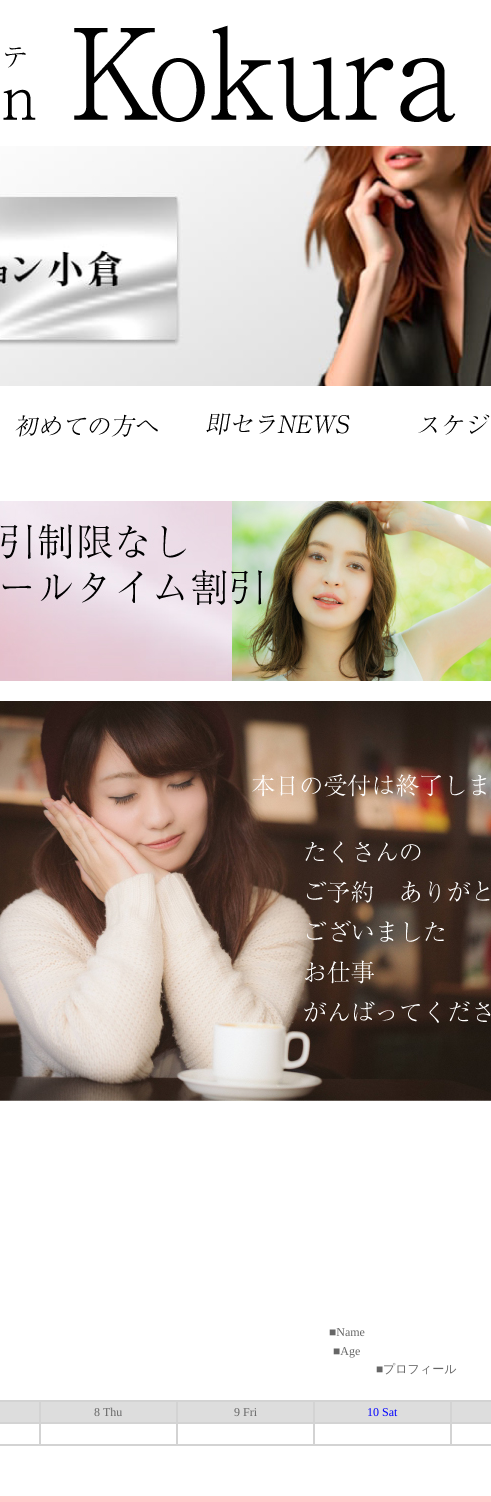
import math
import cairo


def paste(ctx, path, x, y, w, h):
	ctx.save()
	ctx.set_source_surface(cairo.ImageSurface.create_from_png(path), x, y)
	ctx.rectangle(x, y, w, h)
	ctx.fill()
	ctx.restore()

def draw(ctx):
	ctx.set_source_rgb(1, 1, 1)
	ctx.paint()
	paste(ctx, 'media/1.png', 3, 25, 453, 97)
	paste(ctx, 'media/2.png', 0, 146, 491, 240)
	paste(ctx, 'media/3.png', 15, 414, 143, 23)
	paste(ctx, 'media/4.png', 206, 413, 144, 22)
	paste(ctx, 'media/5.png', 418, 414, 72, 21)
	paste(ctx, 'media/6.png', 0, 501, 491, 180)
	paste(ctx, 'media/7.png', 0, 701, 491, 400)
	ctx.select_font_face('Liberation Serif')
	ctx.set_font_size(12)
	ctx.set_source_rgb(0.4, 0.4, 0.4)
	for x, y, s in [
		(329, 1336, '■Name'),
		(333, 1355, '■Age'),
		(376, 1373, '■'),
	]:
		ctx.move_to(x, y)
		ctx.show_text(s)
	ctx.select_font_face('WenQuanYi Zen Hei Medium')
	ctx.move_to(383, 1373)
	ctx.show_text('プロフィール')
	ctx.rectangle(-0.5, 1400.5, 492, 45)
	ctx.set_source_rgb(0.827, 0.827, 0.827)
	ctx.set_line_width(1)
	ctx.stroke()
	ctx.set_source_rgb(0.867, 0.867, 0.867)
	ctx.rectangle(0, 1402, 491, 20)
	ctx.fill()
	ctx.rectangle(-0.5, 1401.5, 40, 21)
	ctx.set_source_rgb(0.827, 0.827, 0.827)
	ctx.stroke()
	ctx.rectangle(40.5, 1401.5, 136, 21)
	ctx.stroke()
	ctx.select_font_face('Liberation Serif')
	ctx.set_source_rgb(0.4, 0.4, 0.4)
	ctx.move_to(94, 1416)
	ctx.show_text('8 Thu')
	ctx.rectangle(177.5, 1401.5, 136, 21)
	ctx.set_source_rgb(0.827, 0.827, 0.827)
	ctx.stroke()
	ctx.set_source_rgb(0.4, 0.4, 0.4)
	ctx.move_to(234, 1416)
	ctx.show_text('9 Fri')
	ctx.rectangle(314.5, 1401.5, 136, 21)
	ctx.set_source_rgb(0.827, 0.827, 0.827)
	ctx.stroke()
	ctx.set_source_rgb(0, 0, 1)
	ctx.move_to(367, 1416)
	ctx.show_text('10 Sat')
	ctx.rectangle(451.5, 1401.5, 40, 21)
	ctx.set_source_rgb(0.827, 0.827, 0.827)
	ctx.stroke()
	ctx.rectangle(-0.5, 1423.5, 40, 21)
	ctx.stroke()
	ctx.rectangle(40.5, 1423.5, 136, 21)
	ctx.stroke()
	ctx.rectangle(177.5, 1423.5, 136, 21)
	ctx.stroke()
	ctx.rectangle(314.5, 1423.5, 136, 21)
	ctx.stroke()
	ctx.rectangle(451.5, 1423.5, 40, 21)
	ctx.stroke()
	ctx.set_source_rgb(1, 0.8, 0.8)
	ctx.rectangle(0, 1496, 491, 6)
	ctx.fill()


surface = cairo.ImageSurface(cairo.FORMAT_RGB24, 491, 1502)
ctx = cairo.Context(surface)
options = cairo.FontOptions()
options.set_hint_metrics(cairo.HINT_METRICS_OFF)
options.set_hint_style(cairo.HINT_STYLE_NONE)
ctx.set_font_options(options)
ctx.set_miter_limit(4)
draw(ctx)
surface.write_to_png('image.png')
